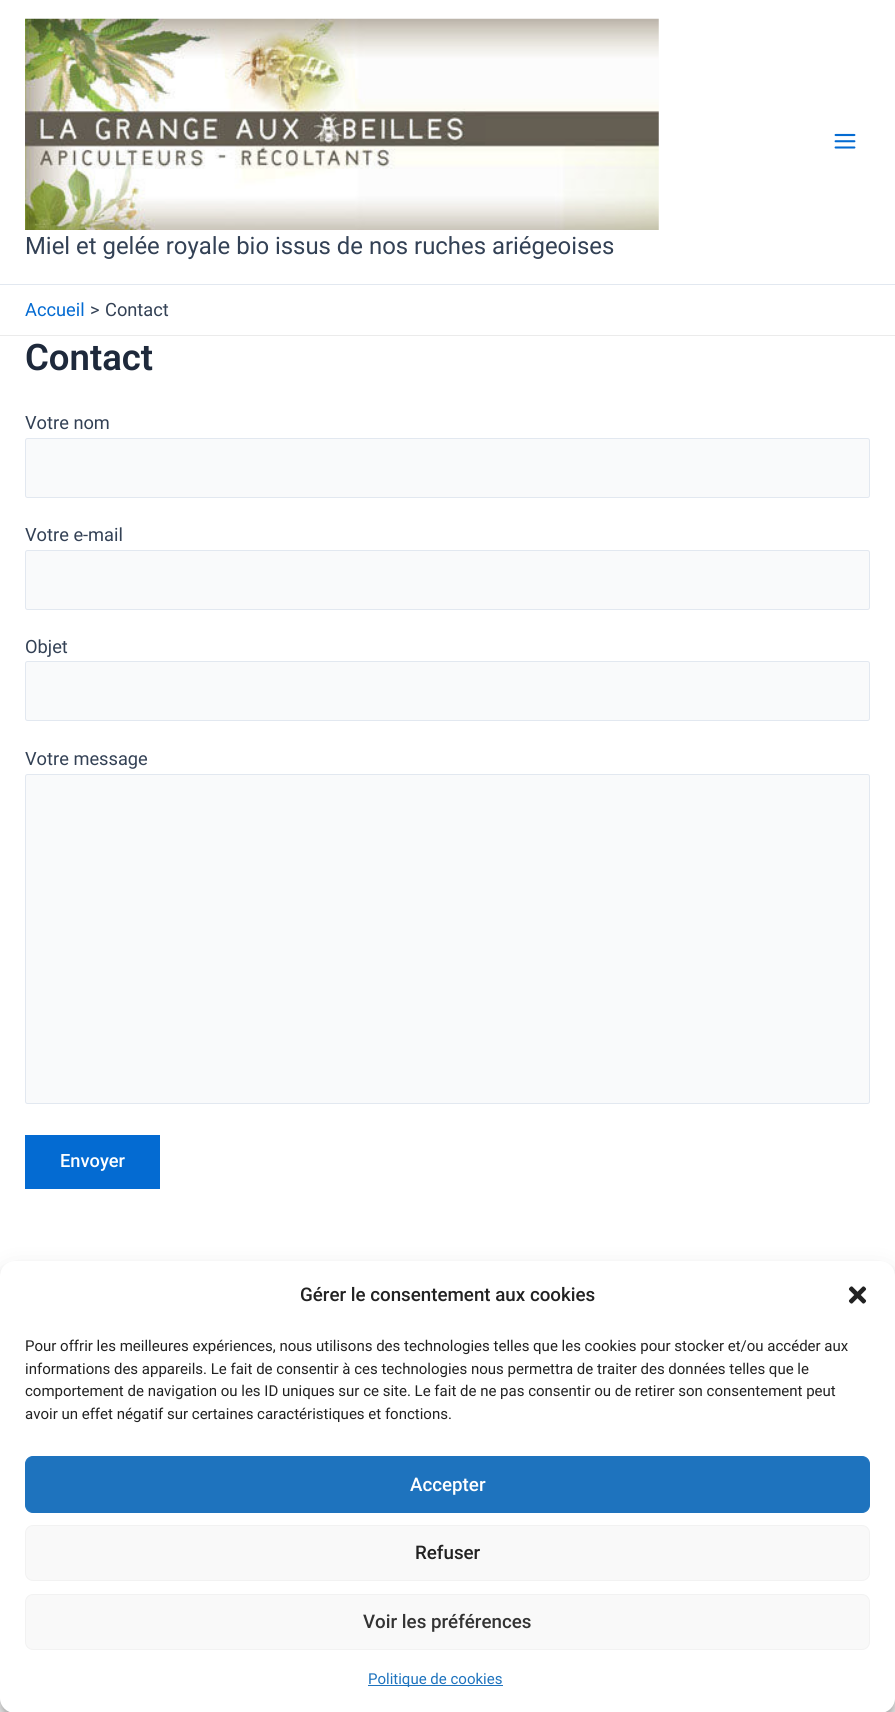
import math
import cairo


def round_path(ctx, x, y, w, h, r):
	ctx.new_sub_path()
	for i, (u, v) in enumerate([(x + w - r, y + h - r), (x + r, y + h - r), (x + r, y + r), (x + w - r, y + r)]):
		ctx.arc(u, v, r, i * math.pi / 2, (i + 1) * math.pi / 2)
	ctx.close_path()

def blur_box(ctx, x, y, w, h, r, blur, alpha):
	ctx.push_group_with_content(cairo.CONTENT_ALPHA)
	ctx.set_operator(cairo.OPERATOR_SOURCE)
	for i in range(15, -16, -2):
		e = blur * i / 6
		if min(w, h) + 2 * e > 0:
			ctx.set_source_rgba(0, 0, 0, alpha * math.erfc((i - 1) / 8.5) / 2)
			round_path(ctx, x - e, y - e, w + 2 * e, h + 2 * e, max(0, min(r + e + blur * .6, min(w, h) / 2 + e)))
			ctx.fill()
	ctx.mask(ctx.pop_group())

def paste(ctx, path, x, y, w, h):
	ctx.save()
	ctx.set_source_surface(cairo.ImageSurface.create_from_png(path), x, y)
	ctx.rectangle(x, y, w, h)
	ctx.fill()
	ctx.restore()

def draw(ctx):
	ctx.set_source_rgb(1, 1, 1)
	ctx.paint()
	ctx.set_source_rgb(0.886, 0.91, 0.941)
	ctx.rectangle(0, 284, 895, 1)
	ctx.fill()
	paste(ctx, 'media/1.png', 834, 133, 22, 16)
	paste(ctx, 'media/2.png', 25, 18, 634, 212)
	ctx.select_font_face('Roboto')
	ctx.set_font_size(23.9)
	ctx.set_source_rgb(0.2, 0.255, 0.333)
	ctx.move_to(25, 254)
	ctx.show_text('Miel et gelée royale bio issus de nos ruches ariégeoises')
	ctx.set_source_rgb(0.918, 0.918, 0.918)
	ctx.rectangle(0, 335, 895, 1)
	ctx.fill()
	ctx.set_font_size(18.25)
	ctx.set_source_rgb(0.016, 0.42, 0.824)
	ctx.move_to(25, 316)
	ctx.show_text('Accueil')
	ctx.set_source_rgb(0.2, 0.255, 0.333)
	ctx.move_to(90, 316)
	ctx.show_text('>')
	ctx.move_to(105, 316)
	ctx.show_text('Contact')
	ctx.select_font_face('Roboto SemiBold')
	ctx.set_font_size(36.5)
	ctx.set_source_rgb(0.118, 0.161, 0.231)
	ctx.move_to(25, 370)
	ctx.show_text('Contact')
	ctx.select_font_face('Roboto')
	ctx.set_font_size(18.25)
	ctx.set_source_rgb(0.2, 0.255, 0.333)
	ctx.move_to(25, 429)
	ctx.show_text('Votre nom')
	ctx.set_source_rgb(0.976, 0.98, 0.984)
	round_path(ctx, 25.5, 438.5, 844, 59, 2)
	ctx.fill_preserve()
	ctx.set_source_rgb(0.886, 0.91, 0.941)
	ctx.set_line_width(1)
	ctx.stroke()
	ctx.set_source_rgb(0.2, 0.255, 0.333)
	ctx.move_to(25, 541)
	ctx.show_text('Votre e-mail')
	ctx.set_source_rgb(0.976, 0.98, 0.984)
	round_path(ctx, 25.5, 550.5, 844, 59, 2)
	ctx.fill_preserve()
	ctx.set_source_rgb(0.886, 0.91, 0.941)
	ctx.stroke()
	ctx.set_source_rgb(0.2, 0.255, 0.333)
	ctx.move_to(25, 653)
	ctx.show_text('Objet')
	ctx.set_source_rgb(0.976, 0.98, 0.984)
	round_path(ctx, 25.5, 661.5, 844, 59, 2)
	ctx.fill_preserve()
	ctx.set_source_rgb(0.886, 0.91, 0.941)
	ctx.stroke()
	ctx.set_source_rgb(0.2, 0.255, 0.333)
	ctx.move_to(25, 765)
	ctx.show_text('Votre message')
	ctx.set_source_rgb(0.976, 0.98, 0.984)
	round_path(ctx, 25.5, 774.5, 844, 329, 2)
	ctx.fill_preserve()
	ctx.set_source_rgb(0.886, 0.91, 0.941)
	ctx.stroke()
	ctx.set_source_rgb(0.016, 0.42, 0.824)
	ctx.rectangle(25, 1135, 135, 54)
	ctx.fill()
	ctx.select_font_face('Roboto Medium')
	ctx.set_source_rgb(1, 1, 1)
	ctx.move_to(60, 1167)
	ctx.show_text('Envoyer')
	ctx.set_source_rgb(0, 0, 0)
	blur_box(ctx, 0, 1269, 895, 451, 15, 4, 0.23)
	blur_box(ctx, 0, 1274, 895, 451, 15, 12.5, 0.19)
	ctx.set_source_rgb(1, 1, 1)
	round_path(ctx, 0, 1261, 895, 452, 15)
	ctx.fill()
	ctx.set_font_size(18.75)
	ctx.set_source_rgb(0.133, 0.133, 0.133)
	ctx.move_to(300, 1301)
	ctx.show_text('Gérer le consentement aux cookies')
	paste(ctx, 'media/3.png', 848, 1286, 19, 18)
	ctx.select_font_face('Roboto')
	ctx.set_font_size(15)
	for x, y, s in [
		(25, 1351, 'Pour offrir les meilleures expériences, nous utilisons des technologies telles que les cookies pour stocker et/ou accéder aux'),
		(25, 1374, 'informations des appareils. Le fait de consentir à ces technologies nous permettra de traiter des données telles que le'),
		(25, 1396, 'comportement de navigation ou les ID uniques sur ce site. Le fait de ne pas consentir ou de retirer son consentement peut'),
		(25, 1419, 'avoir un effet négatif sur certaines caractéristiques et fonctions.'),
	]:
		ctx.move_to(x, y)
		ctx.show_text(s)
	ctx.set_source_rgb(0.118, 0.451, 0.745)
	round_path(ctx, 25.5, 1456.5, 844, 56, 7.5)
	ctx.fill_preserve()
	ctx.stroke()
	ctx.select_font_face('Roboto Medium')
	ctx.set_font_size(18.75)
	ctx.set_source_rgb(1, 1, 1)
	ctx.move_to(410, 1491)
	ctx.show_text('Accepter')
	ctx.set_source_rgb(0.976, 0.976, 0.976)
	round_path(ctx, 25.5, 1525.5, 844, 55, 7.5)
	ctx.fill_preserve()
	ctx.set_source_rgb(0.949, 0.949, 0.949)
	ctx.stroke()
	ctx.set_source_rgb(0.133, 0.133, 0.133)
	ctx.move_to(415, 1559)
	ctx.show_text('Refuser')
	ctx.set_source_rgb(0.976, 0.976, 0.976)
	round_path(ctx, 25.5, 1594.5, 844, 55, 7.5)
	ctx.fill_preserve()
	ctx.set_source_rgb(0.949, 0.949, 0.949)
	ctx.stroke()
	ctx.set_source_rgb(0.2, 0.2, 0.2)
	ctx.move_to(363, 1628)
	ctx.show_text('Voir les préférences')
	ctx.set_source_rgb(0.118, 0.451, 0.745)
	ctx.rectangle(368, 1685, 135, 1)
	ctx.fill()
	ctx.select_font_face('Roboto')
	ctx.set_font_size(15)
	ctx.move_to(368, 1684)
	ctx.show_text('Politique de cookies')


surface = cairo.ImageSurface(cairo.FORMAT_RGB24, 895, 1712)
ctx = cairo.Context(surface)
options = cairo.FontOptions()
options.set_hint_metrics(cairo.HINT_METRICS_OFF)
options.set_hint_style(cairo.HINT_STYLE_NONE)
ctx.set_font_options(options)
ctx.set_miter_limit(4)
draw(ctx)
surface.write_to_png('image.png')
